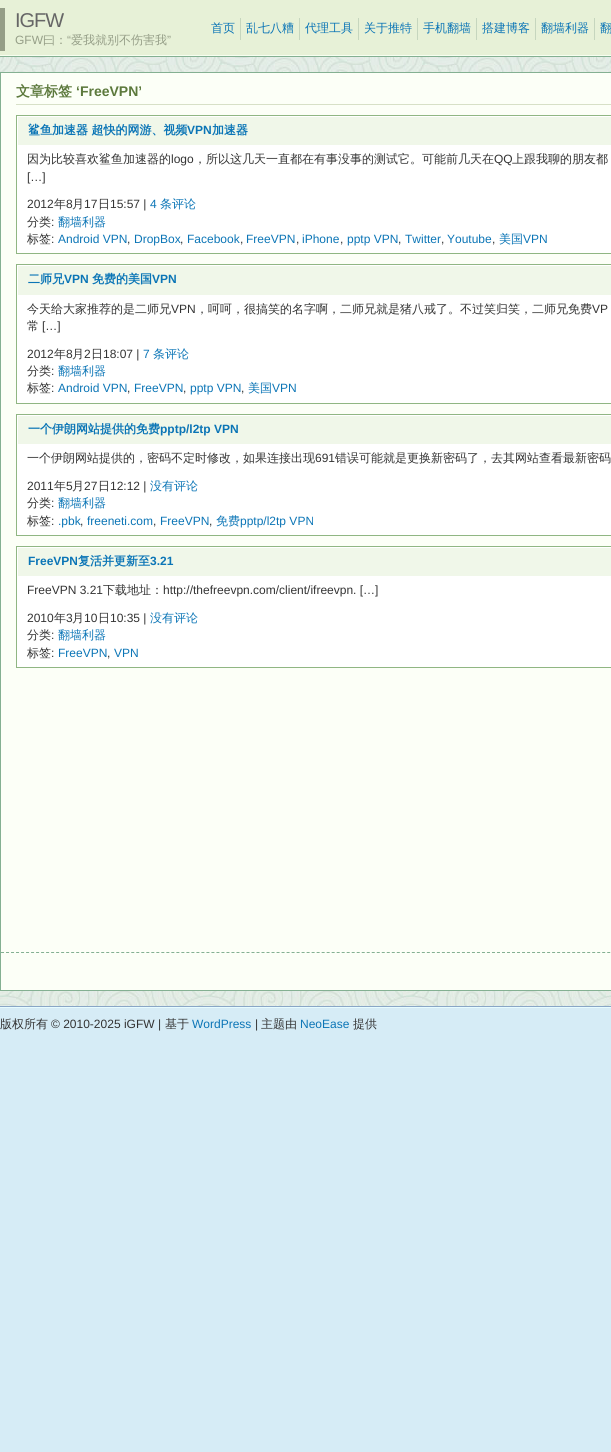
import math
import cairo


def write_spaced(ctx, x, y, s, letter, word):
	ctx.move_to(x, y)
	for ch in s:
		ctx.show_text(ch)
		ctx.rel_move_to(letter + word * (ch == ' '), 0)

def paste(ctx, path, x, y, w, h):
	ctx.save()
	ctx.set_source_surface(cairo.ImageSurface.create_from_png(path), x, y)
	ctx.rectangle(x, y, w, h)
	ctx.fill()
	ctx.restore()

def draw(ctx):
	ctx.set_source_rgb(0.839, 0.922, 0.961)
	ctx.paint()
	ctx.set_source_rgb(0.518, 0.69, 0.573)
	ctx.rectangle(0, 56, 611, 1)
	ctx.fill()
	ctx.set_source_rgb(0.906, 0.945, 0.843)
	ctx.rectangle(0, 0, 611, 55)
	ctx.fill()
	ctx.set_source_rgb(0.965, 1, 0.941)
	ctx.rectangle(0, 55, 611, 1)
	ctx.fill()
	ctx.set_source_rgb(0.584, 0.62, 0.529)
	ctx.rectangle(0, 8, 5, 43)
	ctx.fill()
	ctx.select_font_face('Liberation Sans')
	ctx.set_font_size(20)
	ctx.set_source_rgb(0.4, 0.4, 0.4)
	write_spaced(ctx, 15, 27, 'IGFW', -1, 0)
	ctx.set_font_size(12)
	ctx.set_source_rgb(0.584, 0.62, 0.529)
	ctx.move_to(15, 44)
	ctx.show_text('GFW')
	ctx.select_font_face('WenQuanYi Zen Hei Medium')
	ctx.move_to(43, 44)
	ctx.show_text('曰：')
	ctx.select_font_face('Liberation Sans')
	ctx.move_to(67, 44)
	ctx.show_text('“')
	ctx.select_font_face('WenQuanYi Zen Hei Medium')
	ctx.move_to(71, 44)
	ctx.show_text('爱我就别不伤害我')
	ctx.select_font_face('Liberation Sans')
	ctx.move_to(167, 44)
	ctx.show_text('”')
	ctx.set_source_rgb(0.776, 0.839, 0.745)
	ctx.rectangle(240, 18, 1, 22)
	ctx.fill()
	ctx.select_font_face('WenQuanYi Zen Hei Medium')
	ctx.set_source_rgb(0.043, 0.459, 0.714)
	ctx.move_to(211, 32)
	ctx.show_text('首页')
	ctx.set_source_rgb(0.776, 0.839, 0.745)
	ctx.rectangle(299, 18, 1, 22)
	ctx.fill()
	ctx.set_source_rgb(0.043, 0.459, 0.714)
	ctx.move_to(246, 32)
	ctx.show_text('乱七八糟')
	ctx.set_source_rgb(0.776, 0.839, 0.745)
	ctx.rectangle(358, 18, 1, 22)
	ctx.fill()
	ctx.set_source_rgb(0.043, 0.459, 0.714)
	ctx.move_to(305, 32)
	ctx.show_text('代理工具')
	ctx.set_source_rgb(0.776, 0.839, 0.745)
	ctx.rectangle(417, 18, 1, 22)
	ctx.fill()
	ctx.set_source_rgb(0.043, 0.459, 0.714)
	ctx.move_to(364, 32)
	ctx.show_text('关于推特')
	ctx.set_source_rgb(0.776, 0.839, 0.745)
	ctx.rectangle(476, 18, 1, 22)
	ctx.fill()
	ctx.set_source_rgb(0.043, 0.459, 0.714)
	ctx.move_to(423, 32)
	ctx.show_text('手机翻墙')
	ctx.set_source_rgb(0.776, 0.839, 0.745)
	ctx.rectangle(535, 18, 1, 22)
	ctx.fill()
	ctx.set_source_rgb(0.043, 0.459, 0.714)
	ctx.move_to(482, 32)
	ctx.show_text('搭建博客')
	ctx.set_source_rgb(0.776, 0.839, 0.745)
	ctx.rectangle(594, 18, 1, 22)
	ctx.fill()
	ctx.set_source_rgb(0.043, 0.459, 0.714)
	ctx.move_to(541, 32)
	ctx.show_text('翻墙利器')
	ctx.move_to(600, 32)
	ctx.show_text('翻')
	paste(ctx, 'media/1.png', 0, 57, 611, 949)
	ctx.set_source_rgb(0.988, 1, 0.965)
	ctx.rectangle(1, 73, 610, 917)
	ctx.fill()
	ctx.set_source_rgb(0.518, 0.69, 0.573)
	ctx.rectangle(0, 72, 611, 1)
	ctx.rectangle(0, 72, 1, 919)
	ctx.fill()
	ctx.set_source_rgb(0.843, 0.878, 0.78)
	ctx.rectangle(16, 104, 595, 1)
	ctx.fill()
	ctx.select_font_face('WenQuanYi Zen Hei', cairo.FONT_SLANT_NORMAL, cairo.FONT_WEIGHT_BOLD)
	ctx.set_font_size(14)
	ctx.set_source_rgb(0.361, 0.475, 0.235)
	ctx.move_to(16, 96)
	ctx.show_text('文章标签')
	ctx.select_font_face('Liberation Sans', cairo.FONT_SLANT_NORMAL, cairo.FONT_WEIGHT_BOLD)
	ctx.move_to(76, 96)
	ctx.show_text('‘FreeVPN’')
	ctx.set_source_rgb(1, 1, 1)
	ctx.rectangle(17, 116, 594, 137)
	ctx.fill()
	ctx.set_source_rgb(0.565, 0.714, 0.514)
	ctx.rectangle(16, 115, 595, 1)
	ctx.rectangle(16, 115, 1, 31)
	ctx.fill()
	ctx.set_source_rgb(0.941, 0.965, 0.914)
	ctx.rectangle(18, 117, 593, 28)
	ctx.fill()
	ctx.select_font_face('WenQuanYi Zen Hei', cairo.FONT_SLANT_NORMAL, cairo.FONT_WEIGHT_BOLD)
	ctx.set_font_size(12)
	ctx.set_source_rgb(0.043, 0.459, 0.714)
	ctx.move_to(28, 134)
	ctx.show_text('鲨鱼加速器 超快的网游、视频')
	ctx.select_font_face('Liberation Sans', cairo.FONT_SLANT_NORMAL, cairo.FONT_WEIGHT_BOLD)
	ctx.move_to(187, 134)
	ctx.show_text('VPN')
	ctx.select_font_face('WenQuanYi Zen Hei', cairo.FONT_SLANT_NORMAL, cairo.FONT_WEIGHT_BOLD)
	ctx.move_to(212, 134)
	ctx.show_text('加速器')
	ctx.set_source_rgb(0.565, 0.714, 0.514)
	ctx.rectangle(16, 253, 595, 1)
	ctx.fill()
	ctx.rectangle(16, 146, 1, 108)
	ctx.fill()
	ctx.select_font_face('WenQuanYi Zen Hei Medium')
	ctx.set_source_rgb(0.2, 0.2, 0.2)
	ctx.move_to(27, 163)
	ctx.show_text('因为比较喜欢鲨鱼加速器的')
	ctx.select_font_face('Liberation Sans')
	ctx.move_to(171, 163)
	ctx.show_text('logo')
	ctx.select_font_face('WenQuanYi Zen Hei Medium')
	ctx.move_to(194, 163)
	ctx.show_text('，所以这几天一直都在有事没事的测试它。可能前几天在')
	ctx.select_font_face('Liberation Sans')
	ctx.move_to(494, 163)
	ctx.show_text('QQ')
	ctx.select_font_face('WenQuanYi Zen Hei Medium')
	ctx.move_to(512, 163)
	ctx.show_text('上跟我聊的朋友都')
	ctx.select_font_face('Liberation Sans')
	ctx.move_to(27, 181)
	ctx.show_text('[…]')
	ctx.move_to(27, 208)
	ctx.show_text('2012')
	ctx.select_font_face('WenQuanYi Zen Hei Medium')
	ctx.move_to(54, 208)
	ctx.show_text('年')
	ctx.select_font_face('Liberation Sans')
	ctx.move_to(66, 208)
	ctx.show_text('8')
	ctx.select_font_face('WenQuanYi Zen Hei Medium')
	ctx.move_to(72, 208)
	ctx.show_text('月')
	ctx.select_font_face('Liberation Sans')
	ctx.move_to(84, 208)
	ctx.show_text('17')
	ctx.select_font_face('WenQuanYi Zen Hei Medium')
	ctx.move_to(98, 208)
	ctx.show_text('日')
	ctx.select_font_face('Liberation Sans')
	ctx.move_to(110, 208)
	ctx.show_text('15:57 |')
	ctx.set_source_rgb(0.043, 0.459, 0.714)
	ctx.move_to(150, 208)
	ctx.show_text('4')
	ctx.select_font_face('WenQuanYi Zen Hei Medium')
	ctx.move_to(160, 208)
	ctx.show_text('条评论')
	ctx.set_source_rgb(0.2, 0.2, 0.2)
	ctx.move_to(27, 226)
	ctx.show_text('分类')
	ctx.select_font_face('Liberation Sans')
	ctx.move_to(51, 226)
	ctx.show_text(':')
	ctx.select_font_face('WenQuanYi Zen Hei Medium')
	ctx.set_source_rgb(0.043, 0.459, 0.714)
	ctx.move_to(58, 226)
	ctx.show_text('翻墙利器')
	ctx.set_source_rgb(0.2, 0.2, 0.2)
	ctx.move_to(27, 243)
	ctx.show_text('标签')
	ctx.select_font_face('Liberation Sans')
	ctx.move_to(51, 243)
	ctx.show_text(':')
	ctx.set_source_rgb(0.043, 0.459, 0.714)
	ctx.move_to(58, 243)
	ctx.show_text('Android VPN')
	ctx.set_source_rgb(0.2, 0.2, 0.2)
	ctx.move_to(127, 243)
	ctx.show_text(',')
	ctx.set_source_rgb(0.043, 0.459, 0.714)
	ctx.move_to(134, 243)
	ctx.show_text('DropBox')
	ctx.set_source_rgb(0.2, 0.2, 0.2)
	ctx.move_to(180, 243)
	ctx.show_text(',')
	ctx.set_source_rgb(0.043, 0.459, 0.714)
	ctx.move_to(187, 243)
	ctx.show_text('Facebook')
	ctx.set_source_rgb(0.2, 0.2, 0.2)
	ctx.move_to(240, 243)
	ctx.show_text(',')
	ctx.set_source_rgb(0.043, 0.459, 0.714)
	ctx.move_to(246, 243)
	ctx.show_text('FreeVPN')
	ctx.set_source_rgb(0.2, 0.2, 0.2)
	ctx.move_to(296, 243)
	ctx.show_text(',')
	ctx.set_source_rgb(0.043, 0.459, 0.714)
	ctx.move_to(302, 243)
	ctx.show_text('iPhone')
	ctx.set_source_rgb(0.2, 0.2, 0.2)
	ctx.move_to(340, 243)
	ctx.show_text(',')
	ctx.set_source_rgb(0.043, 0.459, 0.714)
	ctx.move_to(347, 243)
	ctx.show_text('pptp VPN')
	ctx.set_source_rgb(0.2, 0.2, 0.2)
	ctx.move_to(398, 243)
	ctx.show_text(',')
	ctx.set_source_rgb(0.043, 0.459, 0.714)
	ctx.move_to(405, 243)
	ctx.show_text('Twitter')
	ctx.set_source_rgb(0.2, 0.2, 0.2)
	ctx.move_to(441, 243)
	ctx.show_text(',')
	ctx.set_source_rgb(0.043, 0.459, 0.714)
	ctx.move_to(447, 243)
	ctx.show_text('Youtube')
	ctx.set_source_rgb(0.2, 0.2, 0.2)
	ctx.move_to(492, 243)
	ctx.show_text(',')
	ctx.select_font_face('WenQuanYi Zen Hei Medium')
	ctx.set_source_rgb(0.043, 0.459, 0.714)
	ctx.move_to(499, 243)
	ctx.show_text('美国')
	ctx.select_font_face('Liberation Sans')
	ctx.move_to(523, 243)
	ctx.show_text('VPN')
	ctx.set_source_rgb(1, 1, 1)
	ctx.rectangle(17, 265, 594, 138)
	ctx.fill()
	ctx.set_source_rgb(0.565, 0.714, 0.514)
	ctx.rectangle(16, 264, 595, 1)
	ctx.rectangle(16, 264, 1, 32)
	ctx.fill()
	ctx.set_source_rgb(0.941, 0.965, 0.914)
	ctx.rectangle(18, 266, 593, 29)
	ctx.fill()
	ctx.select_font_face('WenQuanYi Zen Hei', cairo.FONT_SLANT_NORMAL, cairo.FONT_WEIGHT_BOLD)
	ctx.set_source_rgb(0.043, 0.459, 0.714)
	ctx.move_to(28, 283)
	ctx.show_text('二师兄')
	ctx.select_font_face('Liberation Sans', cairo.FONT_SLANT_NORMAL, cairo.FONT_WEIGHT_BOLD)
	ctx.move_to(64, 283)
	ctx.show_text('VPN')
	ctx.select_font_face('WenQuanYi Zen Hei', cairo.FONT_SLANT_NORMAL, cairo.FONT_WEIGHT_BOLD)
	ctx.move_to(92, 283)
	ctx.show_text('免费的美国')
	ctx.select_font_face('Liberation Sans', cairo.FONT_SLANT_NORMAL, cairo.FONT_WEIGHT_BOLD)
	ctx.move_to(152, 283)
	ctx.show_text('VPN')
	ctx.set_source_rgb(0.565, 0.714, 0.514)
	ctx.rectangle(16, 403, 595, 1)
	ctx.fill()
	ctx.rectangle(16, 296, 1, 108)
	ctx.fill()
	ctx.select_font_face('WenQuanYi Zen Hei Medium')
	ctx.set_source_rgb(0.2, 0.2, 0.2)
	ctx.move_to(27, 313)
	ctx.show_text('今天给大家推荐的是二师兄')
	ctx.select_font_face('Liberation Sans')
	ctx.move_to(171, 313)
	ctx.show_text('VPN')
	ctx.select_font_face('WenQuanYi Zen Hei Medium')
	ctx.move_to(196, 313)
	ctx.show_text('，呵呵，很搞笑的名字啊，二师兄就是猪八戒了。不过笑归笑，二师兄免费')
	ctx.select_font_face('Liberation Sans')
	ctx.move_to(592, 313)
	ctx.show_text('VP')
	ctx.select_font_face('WenQuanYi Zen Hei Medium')
	ctx.move_to(27, 330)
	ctx.show_text('常')
	ctx.select_font_face('Liberation Sans')
	ctx.move_to(42, 330)
	ctx.show_text('[…]')
	ctx.move_to(27, 358)
	ctx.show_text('2012')
	ctx.select_font_face('WenQuanYi Zen Hei Medium')
	ctx.move_to(54, 358)
	ctx.show_text('年')
	ctx.select_font_face('Liberation Sans')
	ctx.move_to(66, 358)
	ctx.show_text('8')
	ctx.select_font_face('WenQuanYi Zen Hei Medium')
	ctx.move_to(72, 358)
	ctx.show_text('月')
	ctx.select_font_face('Liberation Sans')
	ctx.move_to(84, 358)
	ctx.show_text('2')
	ctx.select_font_face('WenQuanYi Zen Hei Medium')
	ctx.move_to(91, 358)
	ctx.show_text('日')
	ctx.select_font_face('Liberation Sans')
	ctx.move_to(103, 358)
	ctx.show_text('18:07 |')
	ctx.set_source_rgb(0.043, 0.459, 0.714)
	ctx.move_to(143, 358)
	ctx.show_text('7')
	ctx.select_font_face('WenQuanYi Zen Hei Medium')
	ctx.move_to(153, 358)
	ctx.show_text('条评论')
	ctx.set_source_rgb(0.2, 0.2, 0.2)
	ctx.move_to(27, 375)
	ctx.show_text('分类')
	ctx.select_font_face('Liberation Sans')
	ctx.move_to(51, 375)
	ctx.show_text(':')
	ctx.select_font_face('WenQuanYi Zen Hei Medium')
	ctx.set_source_rgb(0.043, 0.459, 0.714)
	ctx.move_to(58, 375)
	ctx.show_text('翻墙利器')
	ctx.set_source_rgb(0.2, 0.2, 0.2)
	ctx.move_to(27, 392)
	ctx.show_text('标签')
	ctx.select_font_face('Liberation Sans')
	ctx.move_to(51, 392)
	ctx.show_text(':')
	ctx.set_source_rgb(0.043, 0.459, 0.714)
	ctx.move_to(58, 392)
	ctx.show_text('Android VPN')
	ctx.set_source_rgb(0.2, 0.2, 0.2)
	ctx.move_to(127, 392)
	ctx.show_text(',')
	ctx.set_source_rgb(0.043, 0.459, 0.714)
	ctx.move_to(134, 392)
	ctx.show_text('FreeVPN')
	ctx.set_source_rgb(0.2, 0.2, 0.2)
	ctx.move_to(183, 392)
	ctx.show_text(',')
	ctx.set_source_rgb(0.043, 0.459, 0.714)
	ctx.move_to(190, 392)
	ctx.show_text('pptp VPN')
	ctx.set_source_rgb(0.2, 0.2, 0.2)
	ctx.move_to(241, 392)
	ctx.show_text(',')
	ctx.select_font_face('WenQuanYi Zen Hei Medium')
	ctx.set_source_rgb(0.043, 0.459, 0.714)
	ctx.move_to(248, 392)
	ctx.show_text('美国')
	ctx.select_font_face('Liberation Sans')
	ctx.move_to(272, 392)
	ctx.show_text('VPN')
	ctx.set_source_rgb(1, 1, 1)
	ctx.rectangle(17, 415, 594, 120)
	ctx.fill()
	ctx.set_source_rgb(0.565, 0.714, 0.514)
	ctx.rectangle(16, 414, 595, 1)
	ctx.rectangle(16, 414, 1, 31)
	ctx.fill()
	ctx.set_source_rgb(0.941, 0.965, 0.914)
	ctx.rectangle(18, 416, 593, 28)
	ctx.fill()
	ctx.select_font_face('WenQuanYi Zen Hei', cairo.FONT_SLANT_NORMAL, cairo.FONT_WEIGHT_BOLD)
	ctx.set_source_rgb(0.043, 0.459, 0.714)
	ctx.move_to(28, 433)
	ctx.show_text('一个伊朗网站提供的免费')
	ctx.select_font_face('Liberation Sans', cairo.FONT_SLANT_NORMAL, cairo.FONT_WEIGHT_BOLD)
	ctx.move_to(160, 433)
	ctx.show_text('pptp/l2tp VPN')
	ctx.set_source_rgb(0.565, 0.714, 0.514)
	ctx.rectangle(16, 535, 595, 1)
	ctx.fill()
	ctx.rectangle(16, 445, 1, 91)
	ctx.fill()
	ctx.select_font_face('WenQuanYi Zen Hei Medium')
	ctx.set_source_rgb(0.2, 0.2, 0.2)
	ctx.move_to(27, 462)
	ctx.show_text('一个伊朗网站提供的，密码不定时修改，如果连接出现')
	ctx.select_font_face('Liberation Sans')
	ctx.move_to(315, 462)
	ctx.show_text('691')
	ctx.select_font_face('WenQuanYi Zen Hei Medium')
	ctx.move_to(335, 462)
	ctx.show_text('错误可能就是更换新密码了，去其网站查看最新密码')
	ctx.select_font_face('Liberation Sans')
	ctx.move_to(27, 490)
	ctx.show_text('2011')
	ctx.select_font_face('WenQuanYi Zen Hei Medium')
	ctx.move_to(54, 490)
	ctx.show_text('年')
	ctx.select_font_face('Liberation Sans')
	ctx.move_to(66, 490)
	ctx.show_text('5')
	ctx.select_font_face('WenQuanYi Zen Hei Medium')
	ctx.move_to(72, 490)
	ctx.show_text('月')
	ctx.select_font_face('Liberation Sans')
	ctx.move_to(84, 490)
	ctx.show_text('27')
	ctx.select_font_face('WenQuanYi Zen Hei Medium')
	ctx.move_to(98, 490)
	ctx.show_text('日')
	ctx.select_font_face('Liberation Sans')
	ctx.move_to(110, 490)
	ctx.show_text('12:12 |')
	ctx.select_font_face('WenQuanYi Zen Hei Medium')
	ctx.set_source_rgb(0.043, 0.459, 0.714)
	ctx.move_to(150, 490)
	ctx.show_text('没有评论')
	ctx.set_source_rgb(0.2, 0.2, 0.2)
	ctx.move_to(27, 507)
	ctx.show_text('分类')
	ctx.select_font_face('Liberation Sans')
	ctx.move_to(51, 507)
	ctx.show_text(':')
	ctx.select_font_face('WenQuanYi Zen Hei Medium')
	ctx.set_source_rgb(0.043, 0.459, 0.714)
	ctx.move_to(58, 507)
	ctx.show_text('翻墙利器')
	ctx.set_source_rgb(0.2, 0.2, 0.2)
	ctx.move_to(27, 525)
	ctx.show_text('标签')
	ctx.select_font_face('Liberation Sans')
	ctx.move_to(51, 525)
	ctx.show_text(':')
	ctx.set_source_rgb(0.043, 0.459, 0.714)
	ctx.move_to(58, 525)
	ctx.show_text('.pbk')
	ctx.set_source_rgb(0.2, 0.2, 0.2)
	ctx.move_to(80, 525)
	ctx.show_text(',')
	ctx.set_source_rgb(0.043, 0.459, 0.714)
	ctx.move_to(87, 525)
	ctx.show_text('freeneti.com')
	ctx.set_source_rgb(0.2, 0.2, 0.2)
	ctx.move_to(153, 525)
	ctx.show_text(',')
	ctx.set_source_rgb(0.043, 0.459, 0.714)
	ctx.move_to(160, 525)
	ctx.show_text('FreeVPN')
	ctx.set_source_rgb(0.2, 0.2, 0.2)
	ctx.move_to(209, 525)
	ctx.show_text(',')
	ctx.select_font_face('WenQuanYi Zen Hei Medium')
	ctx.set_source_rgb(0.043, 0.459, 0.714)
	ctx.move_to(216, 525)
	ctx.show_text('免费')
	ctx.select_font_face('Liberation Sans')
	ctx.move_to(240, 525)
	ctx.show_text('pptp/l2tp VPN')
	ctx.set_source_rgb(1, 1, 1)
	ctx.rectangle(17, 547, 594, 120)
	ctx.fill()
	ctx.set_source_rgb(0.565, 0.714, 0.514)
	ctx.rectangle(16, 546, 595, 1)
	ctx.rectangle(16, 546, 1, 31)
	ctx.fill()
	ctx.set_source_rgb(0.941, 0.965, 0.914)
	ctx.rectangle(18, 548, 593, 28)
	ctx.fill()
	ctx.select_font_face('Liberation Sans', cairo.FONT_SLANT_NORMAL, cairo.FONT_WEIGHT_BOLD)
	ctx.set_source_rgb(0.043, 0.459, 0.714)
	ctx.move_to(28, 565)
	ctx.show_text('FreeVPN')
	ctx.select_font_face('WenQuanYi Zen Hei', cairo.FONT_SLANT_NORMAL, cairo.FONT_WEIGHT_BOLD)
	ctx.move_to(78, 565)
	ctx.show_text('复活并更新至')
	ctx.select_font_face('Liberation Sans', cairo.FONT_SLANT_NORMAL, cairo.FONT_WEIGHT_BOLD)
	ctx.move_to(150, 565)
	ctx.show_text('3.21')
	ctx.set_source_rgb(0.565, 0.714, 0.514)
	ctx.rectangle(16, 667, 595, 1)
	ctx.fill()
	ctx.rectangle(16, 577, 1, 91)
	ctx.fill()
	ctx.select_font_face('Liberation Sans')
	ctx.set_source_rgb(0.2, 0.2, 0.2)
	ctx.move_to(27, 594)
	ctx.show_text('FreeVPN 3.21')
	ctx.select_font_face('WenQuanYi Zen Hei Medium')
	ctx.move_to(103, 594)
	ctx.show_text('下载地址：')
	ctx.select_font_face('Liberation Sans')
	ctx.move_to(163, 594)
	ctx.show_text('http://thefreevpn.com/client/ifreevpn. […]')
	ctx.move_to(27, 622)
	ctx.show_text('2010')
	ctx.select_font_face('WenQuanYi Zen Hei Medium')
	ctx.move_to(54, 622)
	ctx.show_text('年')
	ctx.select_font_face('Liberation Sans')
	ctx.move_to(66, 622)
	ctx.show_text('3')
	ctx.select_font_face('WenQuanYi Zen Hei Medium')
	ctx.move_to(72, 622)
	ctx.show_text('月')
	ctx.select_font_face('Liberation Sans')
	ctx.move_to(84, 622)
	ctx.show_text('10')
	ctx.select_font_face('WenQuanYi Zen Hei Medium')
	ctx.move_to(98, 622)
	ctx.show_text('日')
	ctx.select_font_face('Liberation Sans')
	ctx.move_to(110, 622)
	ctx.show_text('10:35 |')
	ctx.select_font_face('WenQuanYi Zen Hei Medium')
	ctx.set_source_rgb(0.043, 0.459, 0.714)
	ctx.move_to(150, 622)
	ctx.show_text('没有评论')
	ctx.set_source_rgb(0.2, 0.2, 0.2)
	ctx.move_to(27, 639)
	ctx.show_text('分类')
	ctx.select_font_face('Liberation Sans')
	ctx.move_to(51, 639)
	ctx.show_text(':')
	ctx.select_font_face('WenQuanYi Zen Hei Medium')
	ctx.set_source_rgb(0.043, 0.459, 0.714)
	ctx.move_to(58, 639)
	ctx.show_text('翻墙利器')
	ctx.set_source_rgb(0.2, 0.2, 0.2)
	ctx.move_to(27, 657)
	ctx.show_text('标签')
	ctx.select_font_face('Liberation Sans')
	ctx.move_to(51, 657)
	ctx.show_text(':')
	ctx.set_source_rgb(0.043, 0.459, 0.714)
	ctx.move_to(58, 657)
	ctx.show_text('FreeVPN')
	ctx.set_source_rgb(0.2, 0.2, 0.2)
	ctx.move_to(107, 657)
	ctx.show_text(',')
	ctx.set_source_rgb(0.043, 0.459, 0.714)
	ctx.move_to(114, 657)
	ctx.show_text('VPN')
	ctx.set_source_rgb(0.518, 0.69, 0.573)
	ctx.rectangle(1, 990, 610, 1)
	ctx.fill()
	ctx.new_path()
	ctx.move_to(1, 952.5)
	ctx.line_to(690, 952.5)
	ctx.set_line_width(1)
	ctx.set_dash([3, 2.01])
	ctx.stroke()
	ctx.set_source_rgb(0.537, 0.651, 0.776)
	ctx.rectangle(0, 1006, 611, 1)
	ctx.fill()
	ctx.set_source_rgb(0.902, 0.988, 1)
	ctx.rectangle(0, 1007, 611, 1)
	ctx.fill()
	ctx.select_font_face('WenQuanYi Zen Hei Medium')
	ctx.set_source_rgb(0.2, 0.2, 0.2)
	ctx.move_to(0, 1028)
	ctx.show_text('版权所有')
	ctx.select_font_face('Liberation Sans')
	ctx.move_to(51, 1028)
	ctx.show_text('© 2010-2025 iGFW |')
	ctx.select_font_face('WenQuanYi Zen Hei Medium')
	ctx.move_to(165, 1028)
	ctx.show_text('基于')
	ctx.select_font_face('Liberation Sans')
	ctx.set_source_rgb(0.043, 0.459, 0.714)
	ctx.move_to(192, 1028)
	ctx.show_text('WordPress')
	ctx.set_source_rgb(0.2, 0.2, 0.2)
	ctx.move_to(255, 1028)
	ctx.show_text('|')
	ctx.select_font_face('WenQuanYi Zen Hei Medium')
	ctx.move_to(261, 1028)
	ctx.show_text('主题由')
	ctx.select_font_face('Liberation Sans')
	ctx.set_source_rgb(0.043, 0.459, 0.714)
	ctx.move_to(300, 1028)
	ctx.show_text('NeoEase')
	ctx.select_font_face('WenQuanYi Zen Hei Medium')
	ctx.set_source_rgb(0.2, 0.2, 0.2)
	ctx.move_to(353, 1028)
	ctx.show_text('提供')


surface = cairo.ImageSurface(cairo.FORMAT_RGB24, 611, 1452)
ctx = cairo.Context(surface)
options = cairo.FontOptions()
options.set_hint_metrics(cairo.HINT_METRICS_OFF)
options.set_hint_style(cairo.HINT_STYLE_NONE)
ctx.set_font_options(options)
ctx.set_miter_limit(4)
draw(ctx)
surface.write_to_png('image.png')
